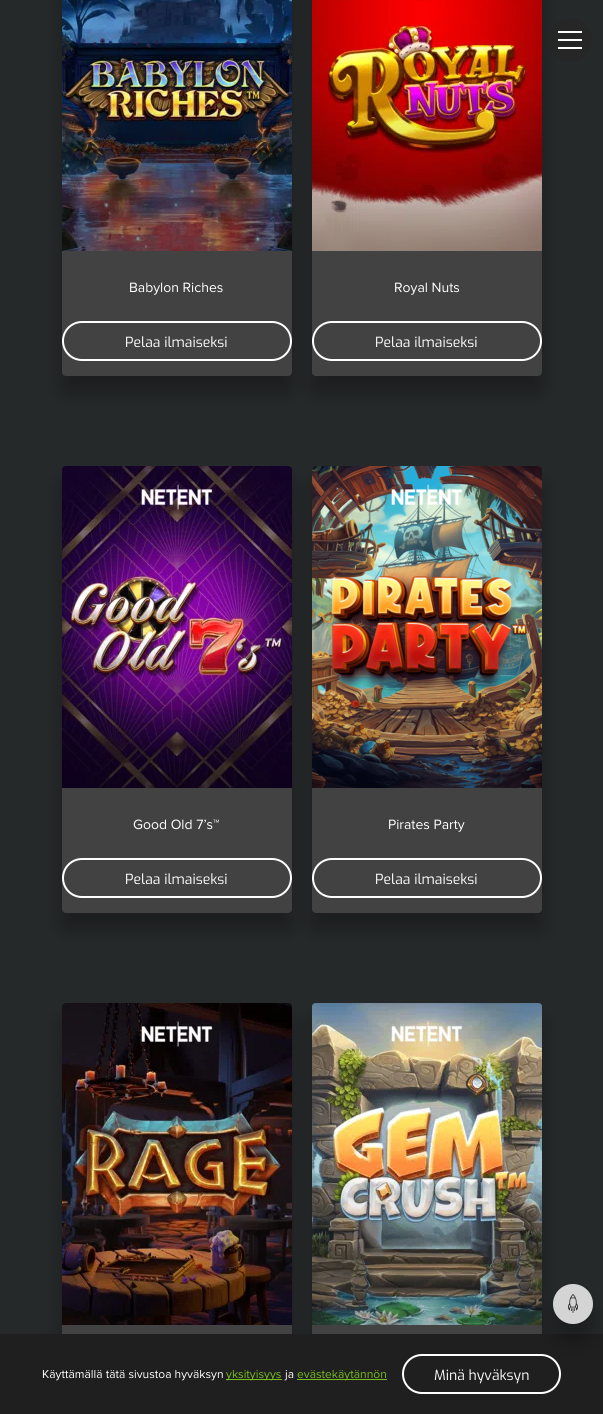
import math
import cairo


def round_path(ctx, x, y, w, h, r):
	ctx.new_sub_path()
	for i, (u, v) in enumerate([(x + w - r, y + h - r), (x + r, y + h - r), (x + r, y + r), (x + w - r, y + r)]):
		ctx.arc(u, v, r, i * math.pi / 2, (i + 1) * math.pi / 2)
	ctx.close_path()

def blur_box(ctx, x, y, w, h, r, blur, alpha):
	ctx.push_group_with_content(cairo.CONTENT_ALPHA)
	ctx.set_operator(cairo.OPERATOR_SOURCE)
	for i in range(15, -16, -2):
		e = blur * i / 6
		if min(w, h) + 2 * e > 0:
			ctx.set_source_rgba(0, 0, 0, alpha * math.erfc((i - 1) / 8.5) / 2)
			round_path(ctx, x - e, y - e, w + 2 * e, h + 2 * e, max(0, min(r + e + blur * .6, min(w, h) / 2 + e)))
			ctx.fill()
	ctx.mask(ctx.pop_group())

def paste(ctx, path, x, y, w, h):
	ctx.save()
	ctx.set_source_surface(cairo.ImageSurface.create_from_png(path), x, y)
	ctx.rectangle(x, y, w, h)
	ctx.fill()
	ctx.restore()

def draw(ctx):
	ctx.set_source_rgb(0.149, 0.161, 0.165)
	ctx.paint()
	ctx.set_source_rgb(0, 0, 0)
	blur_box(ctx, 62, -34, 230, 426, 4, 10, 0.3)
	ctx.set_source_rgb(0.259, 0.259, 0.259)
	round_path(ctx, 62, -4, 230, 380, 4)
	ctx.fill()
	paste(ctx, 'media/1.png', 62, 0, 230, 251)
	round_path(ctx, 63, 322, 228, 38, 19)
	ctx.set_source_rgb(1, 1, 1)
	ctx.stroke()
	ctx.set_source_rgb(0, 0, 0)
	blur_box(ctx, 312, -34, 230, 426, 4, 10, 0.3)
	ctx.set_source_rgba(0.149, 0.149, 0.149, 0.8)
	ctx.arc(570, 40, 22, 0, 2 * math.pi)
	ctx.fill()
	ctx.set_source_rgb(1, 1, 1)
	ctx.rectangle(558, 39, 24, 2)
	ctx.rectangle(558, 31, 24, 2)
	ctx.rectangle(558, 47, 24, 2)
	ctx.fill()
	ctx.select_font_face('Proxima Nova')
	ctx.set_font_size(14)
	ctx.move_to(129, 292)
	ctx.show_text('Babylon Riches')
	ctx.select_font_face('Exo')
	ctx.move_to(125, 347)
	ctx.show_text('Pelaa ilmaiseksi')
	ctx.set_source_rgb(0.259, 0.259, 0.259)
	round_path(ctx, 312, -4, 230, 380, 4)
	ctx.fill()
	paste(ctx, 'media/2.png', 312, 0, 230, 251)
	ctx.select_font_face('Proxima Nova')
	ctx.set_source_rgb(1, 1, 1)
	ctx.move_to(394, 292)
	ctx.show_text('Royal Nuts')
	round_path(ctx, 313, 322, 228, 38, 19)
	ctx.stroke()
	ctx.select_font_face('Exo')
	ctx.move_to(375, 347)
	ctx.show_text('Pelaa ilmaiseksi')
	ctx.set_source_rgb(0, 0, 0)
	blur_box(ctx, 62, 482, 230, 447, 4, 10, 0.3)
	ctx.set_source_rgb(0.259, 0.259, 0.259)
	round_path(ctx, 62, 466, 230, 447, 4)
	ctx.fill()
	paste(ctx, 'media/3.png', 62, 466, 230, 322)
	gradient = cairo.LinearGradient(177, 466, 177, 788)
	gradient.add_color_stop_rgba(0.5, 0, 0, 0, 0)
	gradient.add_color_stop_rgba(1, 0, 0, 0, 0.3)
	ctx.set_source(gradient)
	ctx.rectangle(62, 639, 230, 149)
	ctx.fill()
	ctx.select_font_face('Proxima Nova')
	ctx.set_source_rgb(1, 1, 1)
	ctx.move_to(133, 829)
	ctx.show_text('Good Old 7’s™')
	round_path(ctx, 63, 859, 228, 38, 19)
	ctx.stroke()
	ctx.select_font_face('Exo')
	ctx.move_to(125, 884)
	ctx.show_text('Pelaa ilmaiseksi')
	ctx.set_source_rgb(0, 0, 0)
	blur_box(ctx, 312, 482, 230, 447, 4, 10, 0.3)
	ctx.set_source_rgb(0.259, 0.259, 0.259)
	round_path(ctx, 312, 466, 230, 447, 4)
	ctx.fill()
	paste(ctx, 'media/4.png', 312, 466, 230, 322)
	gradient = cairo.LinearGradient(427, 466, 427, 788)
	gradient.add_color_stop_rgba(0.5, 0, 0, 0, 0)
	gradient.add_color_stop_rgba(1, 0, 0, 0, 0.3)
	ctx.set_source(gradient)
	ctx.rectangle(312, 639, 230, 149)
	ctx.fill()
	ctx.select_font_face('Proxima Nova')
	ctx.set_source_rgb(1, 1, 1)
	ctx.move_to(388, 829)
	ctx.show_text('Pirates Party')
	round_path(ctx, 313, 859, 228, 38, 19)
	ctx.stroke()
	ctx.select_font_face('Exo')
	ctx.move_to(375, 884)
	ctx.show_text('Pelaa ilmaiseksi')
	ctx.set_source_rgb(0, 0, 0)
	blur_box(ctx, 62, 1019, 230, 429, 4, 10, 0.3)
	ctx.set_source_rgb(0.259, 0.259, 0.259)
	round_path(ctx, 62, 1003, 230, 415, 4)
	ctx.fill()
	paste(ctx, 'media/5.png', 62, 1003, 230, 322)
	gradient = cairo.LinearGradient(177, 1003, 177, 1325)
	gradient.add_color_stop_rgba(0.5, 0, 0, 0, 0)
	gradient.add_color_stop_rgba(1, 0, 0, 0, 0.3)
	ctx.set_source(gradient)
	ctx.rectangle(62, 1176, 230, 149)
	ctx.fill()
	ctx.set_source_rgb(0, 0, 0)
	blur_box(ctx, 312, 1019, 230, 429, 4, 10, 0.3)
	ctx.set_source_rgb(0.259, 0.259, 0.259)
	round_path(ctx, 312, 1003, 230, 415, 4)
	ctx.fill()
	paste(ctx, 'media/6.png', 312, 1003, 230, 322)
	gradient = cairo.LinearGradient(427, 1003, 427, 1325)
	gradient.add_color_stop_rgba(0.5, 0, 0, 0, 0)
	gradient.add_color_stop_rgba(1, 0, 0, 0, 0.3)
	ctx.set_source(gradient)
	ctx.rectangle(312, 1176, 230, 149)
	ctx.fill()
	ctx.set_source_rgb(0.122, 0.122, 0.122)
	ctx.rectangle(0, 1334, 603, 80)
	ctx.fill()
	round_path(ctx, 403, 1355, 157, 38, 19)
	ctx.set_source_rgb(1, 1, 1)
	ctx.stroke()
	ctx.save()
	ctx.set_fill_rule(cairo.FILL_RULE_EVEN_ODD)
	ctx.new_path()
	ctx.move_to(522, 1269)
	ctx.line_to(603, 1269)
	ctx.line_to(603, 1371)
	ctx.line_to(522, 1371)
	ctx.close_path()
	ctx.move_to(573, 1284)
	ctx.curve_to(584, 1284, 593, 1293, 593, 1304)
	ctx.curve_to(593, 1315, 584, 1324, 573, 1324)
	ctx.curve_to(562, 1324, 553, 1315, 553, 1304)
	ctx.curve_to(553, 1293, 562, 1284, 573, 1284)
	ctx.close_path()
	ctx.clip()
	ctx.set_source_rgb(0, 0, 0)
	blur_box(ctx, 553, 1300, 40, 40, 20, 10, 0.3)
	ctx.restore()
	ctx.set_source_rgba(1, 1, 1, 0.8)
	ctx.arc(573, 1304, 20, 0, 2 * math.pi)
	ctx.fill()
	paste(ctx, 'media/7.png', 568, 1294, 10, 19)
	ctx.select_font_face('Proxima Nova')
	ctx.set_font_size(12)
	ctx.set_source_rgb(1, 1, 1)
	ctx.move_to(42, 1378)
	ctx.show_text('Käyttämällä tätä sivustoa hyväksyn')
	ctx.set_source_rgb(0.471, 0.745, 0.125)
	ctx.rectangle(226, 1379, 56, 1)
	ctx.fill()
	ctx.move_to(226, 1378)
	ctx.show_text('yksityisyys')
	ctx.set_source_rgb(1, 1, 1)
	ctx.move_to(285, 1378)
	ctx.show_text('ja')
	ctx.set_source_rgb(0.471, 0.745, 0.125)
	ctx.rectangle(297, 1379, 90, 1)
	ctx.fill()
	ctx.move_to(297, 1378)
	ctx.show_text('evästekäytännön')
	ctx.select_font_face('Exo')
	ctx.set_font_size(14)
	ctx.set_source_rgb(1, 1, 1)
	ctx.move_to(434, 1380)
	ctx.show_text('Minä hyväksyn')


surface = cairo.ImageSurface(cairo.FORMAT_RGB24, 603, 1414)
ctx = cairo.Context(surface)
options = cairo.FontOptions()
options.set_hint_metrics(cairo.HINT_METRICS_OFF)
options.set_hint_style(cairo.HINT_STYLE_NONE)
ctx.set_font_options(options)
ctx.set_miter_limit(4)
draw(ctx)
surface.write_to_png('image.png')
